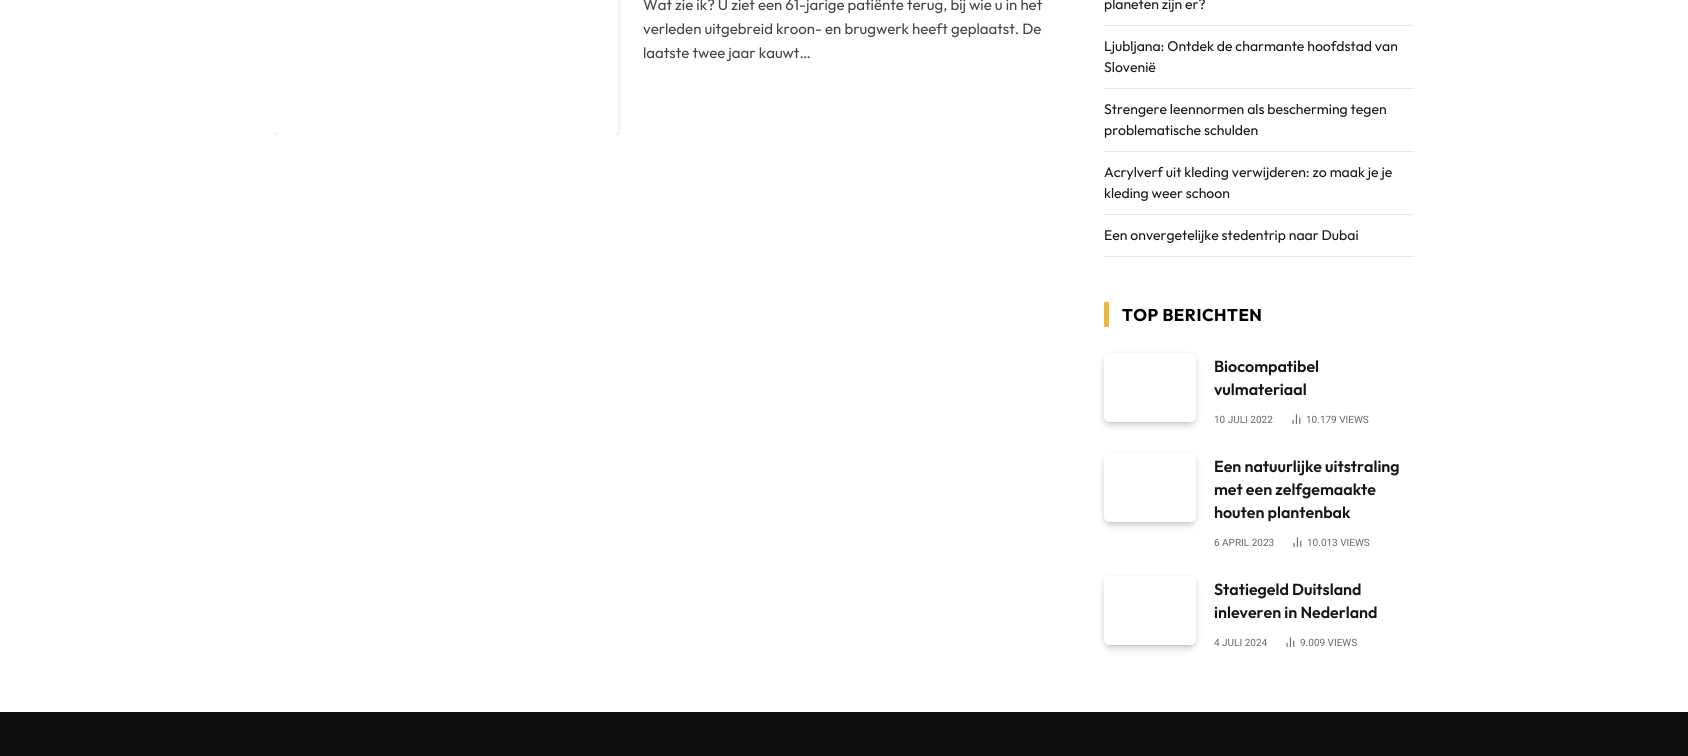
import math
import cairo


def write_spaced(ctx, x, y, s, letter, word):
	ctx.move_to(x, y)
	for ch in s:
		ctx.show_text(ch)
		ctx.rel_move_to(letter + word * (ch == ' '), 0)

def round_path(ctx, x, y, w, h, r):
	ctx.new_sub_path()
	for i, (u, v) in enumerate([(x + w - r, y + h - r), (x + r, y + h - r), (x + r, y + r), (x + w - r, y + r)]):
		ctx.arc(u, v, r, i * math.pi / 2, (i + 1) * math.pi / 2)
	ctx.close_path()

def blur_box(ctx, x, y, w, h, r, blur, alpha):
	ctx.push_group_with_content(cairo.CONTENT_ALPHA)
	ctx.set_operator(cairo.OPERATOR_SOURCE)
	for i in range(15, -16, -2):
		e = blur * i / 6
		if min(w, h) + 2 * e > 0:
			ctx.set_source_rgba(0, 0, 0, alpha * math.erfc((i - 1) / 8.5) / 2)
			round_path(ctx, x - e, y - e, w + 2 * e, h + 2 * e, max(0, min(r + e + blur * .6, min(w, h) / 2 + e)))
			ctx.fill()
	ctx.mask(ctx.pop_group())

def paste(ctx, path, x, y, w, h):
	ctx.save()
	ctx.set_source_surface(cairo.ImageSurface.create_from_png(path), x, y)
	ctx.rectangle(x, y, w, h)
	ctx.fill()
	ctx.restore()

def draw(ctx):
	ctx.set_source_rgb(1, 1, 1)
	ctx.paint()
	ctx.save()
	ctx.rectangle(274, 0, 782, 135)
	ctx.clip()
	ctx.set_fill_rule(cairo.FILL_RULE_EVEN_ODD)
	ctx.new_path()
	ctx.move_to(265, 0)
	ctx.line_to(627, 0)
	ctx.line_to(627, 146)
	ctx.line_to(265, 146)
	ctx.close_path()
	ctx.move_to(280, -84)
	ctx.line_to(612, -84)
	ctx.curve_to(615.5, -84, 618, -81.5, 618, -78)
	ctx.line_to(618, 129)
	ctx.curve_to(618, 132.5, 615.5, 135, 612, 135)
	ctx.line_to(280, 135)
	ctx.curve_to(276.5, 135, 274, 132.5, 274, 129)
	ctx.line_to(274, -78)
	ctx.curve_to(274, -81.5, 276.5, -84, 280, -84)
	ctx.close_path()
	ctx.clip()
	ctx.set_source_rgb(0.027, 0.039, 0.098)
	blur_box(ctx, 275, -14, 342, 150, 5, 3, 0.2)
	ctx.restore()
	ctx.select_font_face('Outfit')
	ctx.set_font_size(15)
	ctx.set_source_rgb(0.259, 0.267, 0.286)
	for x, y, s in [
		(643, 10, 'Wat zie ik? U ziet een 61-jarige patiënte terug, bij wie u in het'),
		(643, 34, 'verleden uitgebreid kroon- en brugwerk heeft geplaatst. De'),
		(643, 58, 'laatste twee jaar kauwt…'),
	]:
		ctx.move_to(x, y)
		ctx.show_text(s)
	ctx.set_source_rgb(0.91, 0.91, 0.91)
	ctx.rectangle(1104, 25, 310, 1)
	ctx.fill()
	ctx.set_font_size(14)
	ctx.set_source_rgb(0.086, 0.086, 0.086)
	ctx.move_to(1104, 9)
	ctx.show_text('planeten zijn er?')
	ctx.set_source_rgb(0.91, 0.91, 0.91)
	ctx.rectangle(1104, 88, 310, 1)
	ctx.fill()
	ctx.set_source_rgb(0.086, 0.086, 0.086)
	ctx.move_to(1104, 51)
	ctx.show_text('Ljubljana: Ontdek de charmante hoofdstad van')
	ctx.move_to(1104, 72)
	ctx.show_text('Slovenië')
	ctx.set_source_rgb(0.91, 0.91, 0.91)
	ctx.rectangle(1104, 151, 310, 1)
	ctx.fill()
	ctx.set_source_rgb(0.086, 0.086, 0.086)
	ctx.move_to(1104, 114)
	ctx.show_text('Strengere leennormen als bescherming tegen')
	ctx.move_to(1104, 135)
	ctx.show_text('problematische schulden')
	ctx.set_source_rgb(0.91, 0.91, 0.91)
	ctx.rectangle(1104, 214, 310, 1)
	ctx.fill()
	ctx.set_source_rgb(0.086, 0.086, 0.086)
	ctx.move_to(1104, 177)
	ctx.show_text('Acrylverf uit kleding verwijderen: zo maak je je')
	ctx.move_to(1104, 198)
	ctx.show_text('kleding weer schoon')
	ctx.set_source_rgb(0.91, 0.91, 0.91)
	ctx.rectangle(1104, 256, 310, 1)
	ctx.fill()
	ctx.set_source_rgb(0.086, 0.086, 0.086)
	ctx.move_to(1104, 240)
	ctx.show_text('Een onvergetelijke stedentrip naar Dubai')
	ctx.set_source_rgb(0.933, 0.714, 0.239)
	ctx.rectangle(1104, 302, 5, 25)
	ctx.fill()
	ctx.select_font_face('Outfit', cairo.FONT_SLANT_NORMAL, cairo.FONT_WEIGHT_BOLD)
	ctx.set_font_size(17)
	ctx.set_source_rgb(0, 0, 0)
	write_spaced(ctx, 1122, 321, 'TOP BERICHTEN', 0.5, 0)
	ctx.save()
	ctx.set_fill_rule(cairo.FILL_RULE_EVEN_ODD)
	ctx.new_path()
	ctx.move_to(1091, 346)
	ctx.line_to(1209, 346)
	ctx.line_to(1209, 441)
	ctx.line_to(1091, 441)
	ctx.close_path()
	ctx.move_to(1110, 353)
	ctx.line_to(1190, 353)
	ctx.curve_to(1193.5, 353, 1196, 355.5, 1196, 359)
	ctx.line_to(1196, 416)
	ctx.curve_to(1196, 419.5, 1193.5, 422, 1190, 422)
	ctx.line_to(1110, 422)
	ctx.curve_to(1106.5, 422, 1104, 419.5, 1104, 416)
	ctx.line_to(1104, 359)
	ctx.curve_to(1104, 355.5, 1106.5, 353, 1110, 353)
	ctx.close_path()
	ctx.clip()
	ctx.set_source_rgb(0.027, 0.039, 0.098)
	blur_box(ctx, 1110, 365, 80, 57, 0, 6, 0.2)
	ctx.restore()
	ctx.save()
	ctx.set_fill_rule(cairo.FILL_RULE_EVEN_ODD)
	ctx.new_path()
	ctx.move_to(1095, 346)
	ctx.line_to(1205, 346)
	ctx.line_to(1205, 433)
	ctx.line_to(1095, 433)
	ctx.close_path()
	ctx.move_to(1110, 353)
	ctx.line_to(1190, 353)
	ctx.curve_to(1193.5, 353, 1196, 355.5, 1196, 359)
	ctx.line_to(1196, 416)
	ctx.curve_to(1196, 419.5, 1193.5, 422, 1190, 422)
	ctx.line_to(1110, 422)
	ctx.curve_to(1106.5, 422, 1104, 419.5, 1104, 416)
	ctx.line_to(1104, 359)
	ctx.curve_to(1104, 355.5, 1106.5, 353, 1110, 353)
	ctx.close_path()
	ctx.clip()
	ctx.set_source_rgb(0.027, 0.039, 0.098)
	blur_box(ctx, 1105, 356, 90, 67, 5, 3, 0.2)
	ctx.restore()
	ctx.select_font_face('Outfit SemiBold')
	ctx.set_font_size(16)
	ctx.set_source_rgb(0.086, 0.086, 0.086)
	ctx.move_to(1214, 372)
	ctx.show_text('Biocompatibel')
	ctx.move_to(1214, 395)
	ctx.show_text('vulmateriaal')
	ctx.select_font_face('Roboto')
	ctx.set_font_size(10)
	ctx.set_source_rgb(0.4, 0.4, 0.4)
	ctx.move_to(1214, 423)
	ctx.show_text('10 JULI 2022')
	paste(ctx, 'media/1.png', 1292, 414, 9, 11)
	ctx.move_to(1306, 423)
	ctx.show_text('10.179 VIEWS')
	ctx.save()
	ctx.set_fill_rule(cairo.FILL_RULE_EVEN_ODD)
	ctx.new_path()
	ctx.move_to(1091, 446)
	ctx.line_to(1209, 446)
	ctx.line_to(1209, 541)
	ctx.line_to(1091, 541)
	ctx.close_path()
	ctx.move_to(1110, 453)
	ctx.line_to(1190, 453)
	ctx.curve_to(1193.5, 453, 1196, 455.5, 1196, 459)
	ctx.line_to(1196, 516)
	ctx.curve_to(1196, 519.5, 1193.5, 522, 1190, 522)
	ctx.line_to(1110, 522)
	ctx.curve_to(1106.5, 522, 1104, 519.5, 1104, 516)
	ctx.line_to(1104, 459)
	ctx.curve_to(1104, 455.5, 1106.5, 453, 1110, 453)
	ctx.close_path()
	ctx.clip()
	ctx.set_source_rgb(0.027, 0.039, 0.098)
	blur_box(ctx, 1110, 465, 80, 57, 0, 6, 0.2)
	ctx.restore()
	ctx.save()
	ctx.set_fill_rule(cairo.FILL_RULE_EVEN_ODD)
	ctx.new_path()
	ctx.move_to(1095, 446)
	ctx.line_to(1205, 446)
	ctx.line_to(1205, 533)
	ctx.line_to(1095, 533)
	ctx.close_path()
	ctx.move_to(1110, 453)
	ctx.line_to(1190, 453)
	ctx.curve_to(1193.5, 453, 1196, 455.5, 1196, 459)
	ctx.line_to(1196, 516)
	ctx.curve_to(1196, 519.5, 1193.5, 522, 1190, 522)
	ctx.line_to(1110, 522)
	ctx.curve_to(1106.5, 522, 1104, 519.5, 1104, 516)
	ctx.line_to(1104, 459)
	ctx.curve_to(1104, 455.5, 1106.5, 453, 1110, 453)
	ctx.close_path()
	ctx.clip()
	ctx.set_source_rgb(0.027, 0.039, 0.098)
	blur_box(ctx, 1105, 456, 90, 67, 5, 3, 0.2)
	ctx.restore()
	ctx.select_font_face('Outfit SemiBold')
	ctx.set_font_size(16)
	ctx.set_source_rgb(0.086, 0.086, 0.086)
	for x, y, s in [
		(1214, 472, 'Een natuurlijke uitstraling'),
		(1214, 495, 'met een zelfgemaakte'),
		(1214, 518, 'houten plantenbak'),
	]:
		ctx.move_to(x, y)
		ctx.show_text(s)
	ctx.select_font_face('Roboto')
	ctx.set_font_size(10)
	ctx.set_source_rgb(0.4, 0.4, 0.4)
	ctx.move_to(1214, 546)
	ctx.show_text('6 APRIL 2023')
	paste(ctx, 'media/1.png', 1293, 537, 9, 11)
	ctx.move_to(1307, 546)
	ctx.show_text('10.013 VIEWS')
	ctx.save()
	ctx.set_fill_rule(cairo.FILL_RULE_EVEN_ODD)
	ctx.new_path()
	ctx.move_to(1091, 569)
	ctx.line_to(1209, 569)
	ctx.line_to(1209, 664)
	ctx.line_to(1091, 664)
	ctx.close_path()
	ctx.move_to(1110, 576)
	ctx.line_to(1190, 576)
	ctx.curve_to(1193.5, 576, 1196, 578.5, 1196, 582)
	ctx.line_to(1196, 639)
	ctx.curve_to(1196, 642.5, 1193.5, 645, 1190, 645)
	ctx.line_to(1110, 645)
	ctx.curve_to(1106.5, 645, 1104, 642.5, 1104, 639)
	ctx.line_to(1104, 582)
	ctx.curve_to(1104, 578.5, 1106.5, 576, 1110, 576)
	ctx.close_path()
	ctx.clip()
	ctx.set_source_rgb(0.027, 0.039, 0.098)
	blur_box(ctx, 1110, 588, 80, 57, 0, 6, 0.2)
	ctx.restore()
	ctx.save()
	ctx.set_fill_rule(cairo.FILL_RULE_EVEN_ODD)
	ctx.new_path()
	ctx.move_to(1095, 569)
	ctx.line_to(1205, 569)
	ctx.line_to(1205, 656)
	ctx.line_to(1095, 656)
	ctx.close_path()
	ctx.move_to(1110, 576)
	ctx.line_to(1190, 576)
	ctx.curve_to(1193.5, 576, 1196, 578.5, 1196, 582)
	ctx.line_to(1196, 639)
	ctx.curve_to(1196, 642.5, 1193.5, 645, 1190, 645)
	ctx.line_to(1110, 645)
	ctx.curve_to(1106.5, 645, 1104, 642.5, 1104, 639)
	ctx.line_to(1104, 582)
	ctx.curve_to(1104, 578.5, 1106.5, 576, 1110, 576)
	ctx.close_path()
	ctx.clip()
	ctx.set_source_rgb(0.027, 0.039, 0.098)
	blur_box(ctx, 1105, 579, 90, 67, 5, 3, 0.2)
	ctx.restore()
	ctx.select_font_face('Outfit SemiBold')
	ctx.set_font_size(16)
	ctx.set_source_rgb(0.086, 0.086, 0.086)
	ctx.move_to(1214, 595)
	ctx.show_text('Statiegeld Duitsland')
	ctx.move_to(1214, 618)
	ctx.show_text('inleveren in Nederland')
	ctx.select_font_face('Roboto')
	ctx.set_font_size(10)
	ctx.set_source_rgb(0.4, 0.4, 0.4)
	ctx.move_to(1214, 646)
	ctx.show_text('4 JULI 2024')
	paste(ctx, 'media/1.png', 1286, 637, 9, 11)
	ctx.move_to(1300, 646)
	ctx.show_text('9.009 VIEWS')
	ctx.set_source_rgb(0.059, 0.059, 0.067)
	ctx.rectangle(0, 712, 1688, 44)
	ctx.fill()


surface = cairo.ImageSurface(cairo.FORMAT_RGB24, 1688, 756)
ctx = cairo.Context(surface)
options = cairo.FontOptions()
options.set_hint_metrics(cairo.HINT_METRICS_OFF)
options.set_hint_style(cairo.HINT_STYLE_NONE)
ctx.set_font_options(options)
ctx.set_miter_limit(4)
draw(ctx)
surface.write_to_png('image.png')
